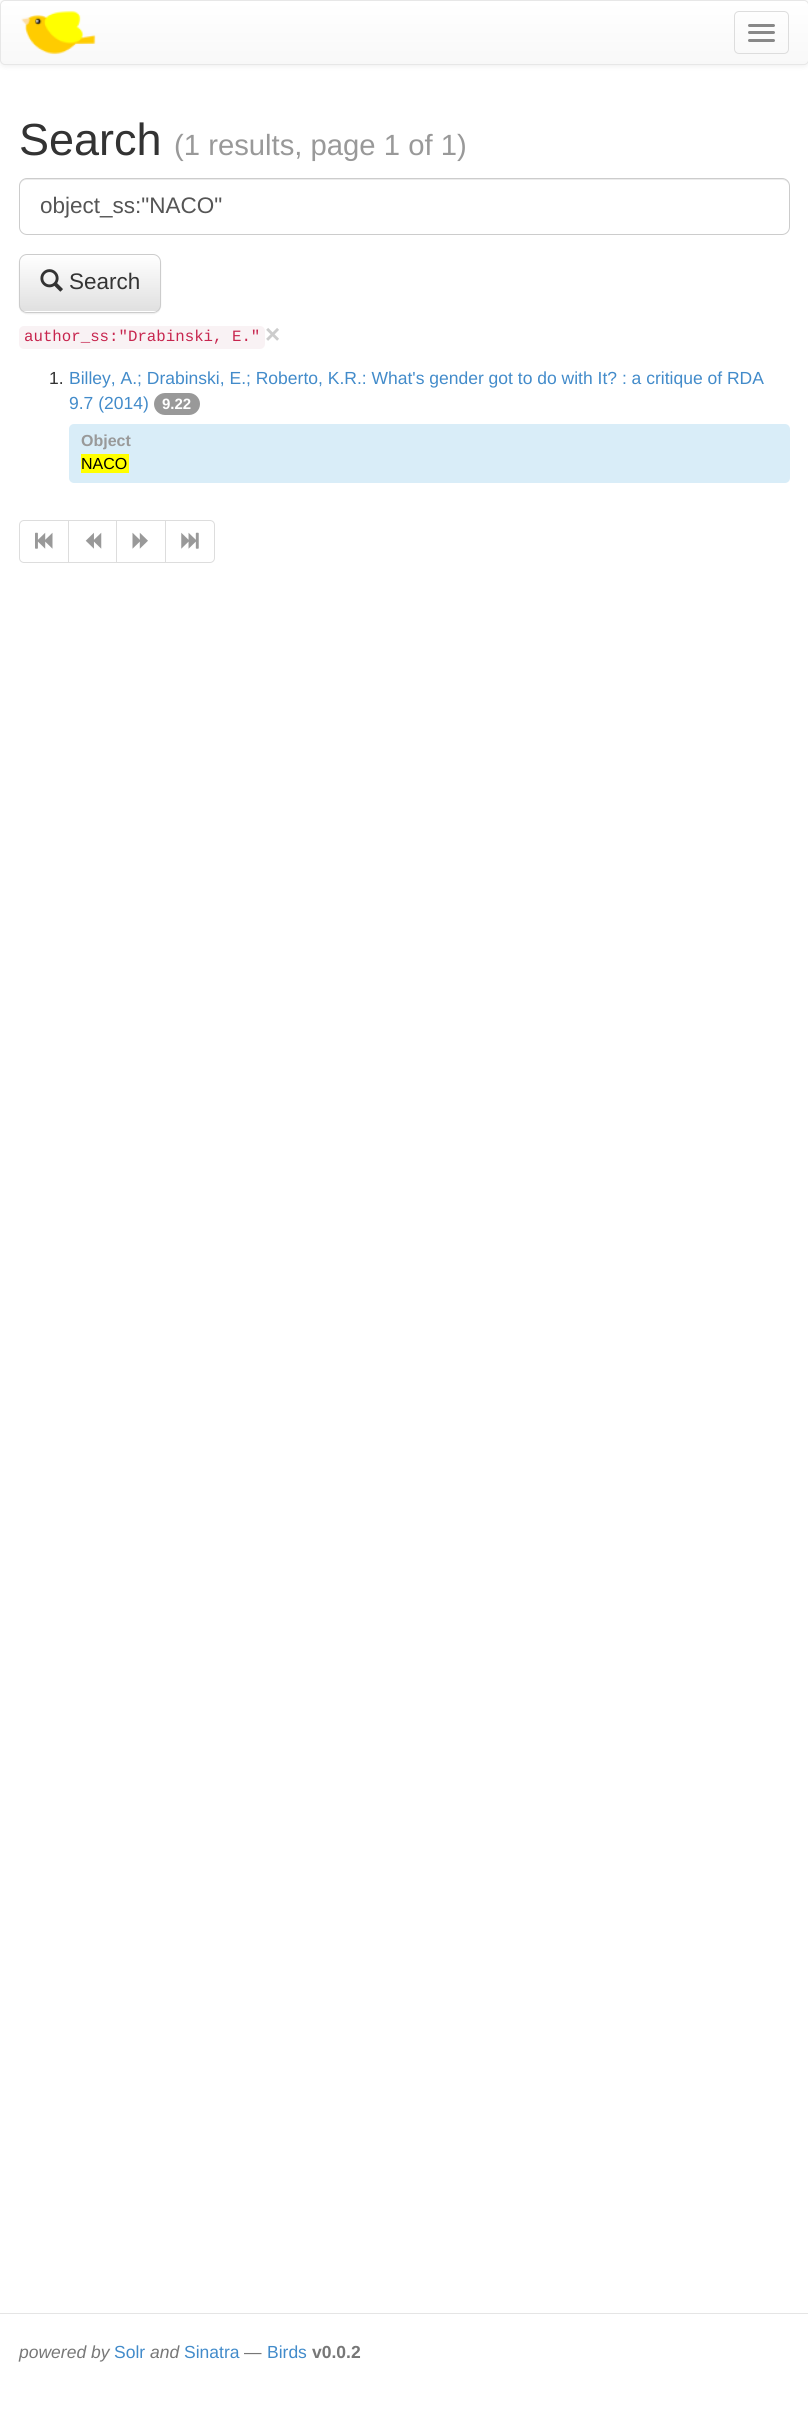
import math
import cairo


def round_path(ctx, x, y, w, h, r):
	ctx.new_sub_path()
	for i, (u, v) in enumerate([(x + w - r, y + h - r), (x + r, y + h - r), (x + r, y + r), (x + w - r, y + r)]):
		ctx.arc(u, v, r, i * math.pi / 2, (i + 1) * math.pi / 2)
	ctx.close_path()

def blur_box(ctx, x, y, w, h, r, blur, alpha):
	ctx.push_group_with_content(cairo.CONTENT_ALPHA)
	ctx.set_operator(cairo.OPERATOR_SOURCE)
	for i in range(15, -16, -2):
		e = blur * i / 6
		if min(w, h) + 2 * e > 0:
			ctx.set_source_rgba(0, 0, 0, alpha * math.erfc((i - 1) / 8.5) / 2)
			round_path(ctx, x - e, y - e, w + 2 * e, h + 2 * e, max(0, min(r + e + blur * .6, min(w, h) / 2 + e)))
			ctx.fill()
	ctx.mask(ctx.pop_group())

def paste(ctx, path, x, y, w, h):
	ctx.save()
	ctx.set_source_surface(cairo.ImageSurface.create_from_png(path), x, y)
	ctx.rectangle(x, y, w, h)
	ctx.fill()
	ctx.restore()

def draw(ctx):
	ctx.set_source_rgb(1, 1, 1)
	ctx.paint()
	ctx.set_source_rgb(0, 0, 0)
	blur_box(ctx, 0, 1, 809, 65, 5, 3, 0.07)
	ctx.save()
	round_path(ctx, 0, 0, 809, 65, 5)
	ctx.clip()
	gradient = cairo.LinearGradient(404, 1.2, 404, 64)
	gradient.add_color_stop_rgba(0, 1, 1, 1, 1)
	gradient.add_color_stop_rgba(1, 0.973, 0.973, 0.973, 1)
	ctx.set_source(gradient)
	ctx.rectangle(0, 1, 808, 63)
	ctx.fill()
	ctx.restore()
	round_path(ctx, 0.5, 0.5, 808, 64, 4.5)
	ctx.set_source_rgb(0.906, 0.906, 0.906)
	ctx.set_line_width(1)
	ctx.stroke()
	paste(ctx, 'media/1.png', 21, 10, 75, 45)
	round_path(ctx, 734.5, 11.5, 54, 42, 4.5)
	ctx.set_source_rgb(0.867, 0.867, 0.867)
	ctx.stroke()
	ctx.set_source_rgb(0.533, 0.533, 0.533)
	round_path(ctx, 748, 24, 27, 3, 1.5)
	ctx.fill()
	round_path(ctx, 748, 31, 27, 3, 1.5)
	ctx.fill()
	round_path(ctx, 748, 39, 27, 3, 1.5)
	ctx.fill()
	ctx.select_font_face('Liberation Sans')
	ctx.set_font_size(45)
	ctx.set_source_rgb(0.2, 0.2, 0.2)
	ctx.move_to(19, 155)
	ctx.show_text('Search')
	ctx.set_font_size(29.25)
	ctx.set_source_rgb(0.6, 0.6, 0.6)
	ctx.move_to(174, 155)
	ctx.show_text('(1 results, page 1 of 1)')
	ctx.set_source_rgb(0.925, 0.925, 0.925)
	ctx.new_path()
	ctx.move_to(26, 180)
	ctx.line_to(782, 180)
	ctx.curve_to(786, 180, 789, 183, 789, 186)
	ctx.line_to(789, 185)
	ctx.curve_to(789, 182, 786, 179, 783, 179)
	ctx.line_to(26, 179)
	ctx.curve_to(23, 179, 20, 182, 20, 185)
	ctx.line_to(20, 186)
	ctx.curve_to(20, 183, 23, 180, 26, 180)
	ctx.close_path()
	ctx.fill()
	round_path(ctx, 19.5, 178.5, 770, 56, 7.5)
	ctx.set_source_rgb(0.8, 0.8, 0.8)
	ctx.stroke()
	ctx.set_font_size(22.5)
	ctx.set_source_rgb(0.333, 0.333, 0.333)
	ctx.move_to(40, 213)
	ctx.show_text('object_ss:"NACO"')
	ctx.set_source_rgb(0, 0, 0)
	blur_box(ctx, 19, 255, 142, 59, 8, 0.5, 0.07)
	ctx.set_source_rgb(1, 1, 1)
	round_path(ctx, 19, 254, 142, 59, 8)
	ctx.fill()
	ctx.save()
	round_path(ctx, 19, 254, 142, 59, 8)
	ctx.clip()
	gradient = cairo.LinearGradient(90, 255, 90, 311)
	gradient.add_color_stop_rgba(0, 1, 1, 1, 1)
	gradient.add_color_stop_rgba(1, 0.878, 0.878, 0.878, 1)
	ctx.set_source(gradient)
	ctx.rectangle(19, 255, 142, 56)
	ctx.fill()
	ctx.restore()
	round_path(ctx, 19.5, 254.5, 141, 58, 7.5)
	ctx.set_source_rgb(0.8, 0.8, 0.8)
	ctx.stroke()
	paste(ctx, 'media/2.png', 40, 269, 23, 23)
	ctx.set_source_rgb(0.2, 0.2, 0.2)
	ctx.move_to(69, 289)
	ctx.show_text('Search')
	ctx.set_source_rgb(0.976, 0.949, 0.957)
	round_path(ctx, 19, 326, 246, 23, 5)
	ctx.fill()
	ctx.select_font_face('Liberation Mono')
	ctx.set_font_size(15.75)
	ctx.set_source_rgb(0.78, 0.145, 0.306)
	ctx.move_to(24, 341)
	ctx.show_text('author_ss:"Drabinski, E."')
	ctx.select_font_face('Liberation Sans', cairo.FONT_SLANT_NORMAL, cairo.FONT_WEIGHT_BOLD)
	ctx.set_font_size(26)
	ctx.set_source_rgb(0.8, 0.8, 0.8)
	ctx.move_to(265, 343)
	ctx.show_text('×')
	ctx.select_font_face('Liberation Sans')
	ctx.set_font_size(17.5)
	ctx.set_source_rgb(0.2, 0.2, 0.2)
	ctx.move_to(49, 384)
	ctx.show_text('1.')
	ctx.set_source_rgb(0.259, 0.545, 0.792)
	ctx.move_to(69, 384)
	ctx.show_text('Billey, A.; Drabinski, E.; Roberto, K.R.: What\'s gender got to do with It? : a critique of RDA')
	ctx.move_to(69, 409)
	ctx.show_text('9.7 (2014)')
	ctx.set_source_rgb(0.6, 0.6, 0.6)
	round_path(ctx, 154, 393, 46, 22, 11)
	ctx.fill()
	ctx.select_font_face('Liberation Sans', cairo.FONT_SLANT_NORMAL, cairo.FONT_WEIGHT_BOLD)
	ctx.set_font_size(15)
	ctx.set_source_rgb(1, 1, 1)
	ctx.move_to(162, 409)
	ctx.show_text('9.22')
	ctx.set_source_rgb(0.851, 0.929, 0.969)
	round_path(ctx, 69, 424, 721, 59, 5)
	ctx.fill()
	ctx.set_font_size(16)
	ctx.set_source_rgb(0.6, 0.6, 0.6)
	ctx.move_to(81, 446)
	ctx.show_text('Object')
	ctx.set_source_rgb(1, 1, 0)
	ctx.rectangle(81, 454, 48, 19)
	ctx.fill()
	ctx.select_font_face('Liberation Sans')
	ctx.set_source_rgb(0, 0, 0)
	ctx.move_to(81, 469)
	ctx.show_text('NACO')
	ctx.new_path()
	ctx.move_to(24, 520.5)
	ctx.line_to(68.5, 520.5)
	ctx.line_to(68.5, 562.5)
	ctx.line_to(24, 562.5)
	ctx.curve_to(21.5, 562.5, 19.5, 560.5, 19.5, 558)
	ctx.line_to(19.5, 525)
	ctx.curve_to(19.5, 522.5, 21.5, 520.5, 24, 520.5)
	ctx.close_path()
	ctx.set_source_rgb(0.867, 0.867, 0.867)
	ctx.stroke()
	paste(ctx, 'media/3.png', 35, 532, 18, 17)
	ctx.rectangle(68.5, 520.5, 49, 42)
	ctx.stroke()
	paste(ctx, 'media/4.png', 85, 532, 17, 17)
	ctx.set_source_rgb(1, 1, 1)
	ctx.rectangle(117, 521, 1, 41)
	ctx.fill()
	ctx.rectangle(116.5, 520.5, 49, 42)
	ctx.set_source_rgb(0.867, 0.867, 0.867)
	ctx.stroke()
	paste(ctx, 'media/5.png', 132, 532, 16, 17)
	ctx.set_source_rgb(1, 1, 1)
	ctx.new_path()
	ctx.move_to(165.5, 520.5)
	ctx.line_to(210, 520.5)
	ctx.curve_to(212.5, 520.5, 214.5, 522.5, 214.5, 525)
	ctx.line_to(214.5, 558)
	ctx.curve_to(214.5, 560.5, 212.5, 562.5, 210, 562.5)
	ctx.line_to(165.5, 562.5)
	ctx.close_path()
	ctx.fill_preserve()
	ctx.set_source_rgb(0.867, 0.867, 0.867)
	ctx.stroke()
	paste(ctx, 'media/6.png', 181, 532, 18, 17)
	ctx.set_source_rgb(0.898, 0.898, 0.898)
	ctx.rectangle(0, 2313, 808, 1)
	ctx.fill()
	ctx.select_font_face('Liberation Sans', cairo.FONT_SLANT_ITALIC)
	ctx.set_font_size(17.5)
	ctx.set_source_rgb(0.467, 0.467, 0.467)
	ctx.move_to(19, 2358)
	ctx.show_text('powered by')
	ctx.select_font_face('Liberation Sans')
	ctx.set_source_rgb(0.259, 0.545, 0.792)
	ctx.move_to(114, 2358)
	ctx.show_text('Solr')
	ctx.select_font_face('Liberation Sans', cairo.FONT_SLANT_ITALIC)
	ctx.set_source_rgb(0.467, 0.467, 0.467)
	ctx.move_to(150, 2358)
	ctx.show_text('and')
	ctx.select_font_face('Liberation Sans')
	ctx.set_source_rgb(0.259, 0.545, 0.792)
	ctx.move_to(184, 2358)
	ctx.show_text('Sinatra')
	ctx.set_source_rgb(0.467, 0.467, 0.467)
	ctx.move_to(244, 2358)
	ctx.show_text('—')
	ctx.set_source_rgb(0.259, 0.545, 0.792)
	ctx.move_to(267, 2358)
	ctx.show_text('Birds')
	ctx.select_font_face('Liberation Sans', cairo.FONT_SLANT_NORMAL, cairo.FONT_WEIGHT_BOLD)
	ctx.set_source_rgb(0.467, 0.467, 0.467)
	ctx.move_to(312, 2358)
	ctx.show_text('v0.0.2')


surface = cairo.ImageSurface(cairo.FORMAT_RGB24, 808, 2412)
ctx = cairo.Context(surface)
options = cairo.FontOptions()
options.set_hint_metrics(cairo.HINT_METRICS_OFF)
options.set_hint_style(cairo.HINT_STYLE_NONE)
ctx.set_font_options(options)
ctx.set_miter_limit(4)
draw(ctx)
surface.write_to_png('image.png')
